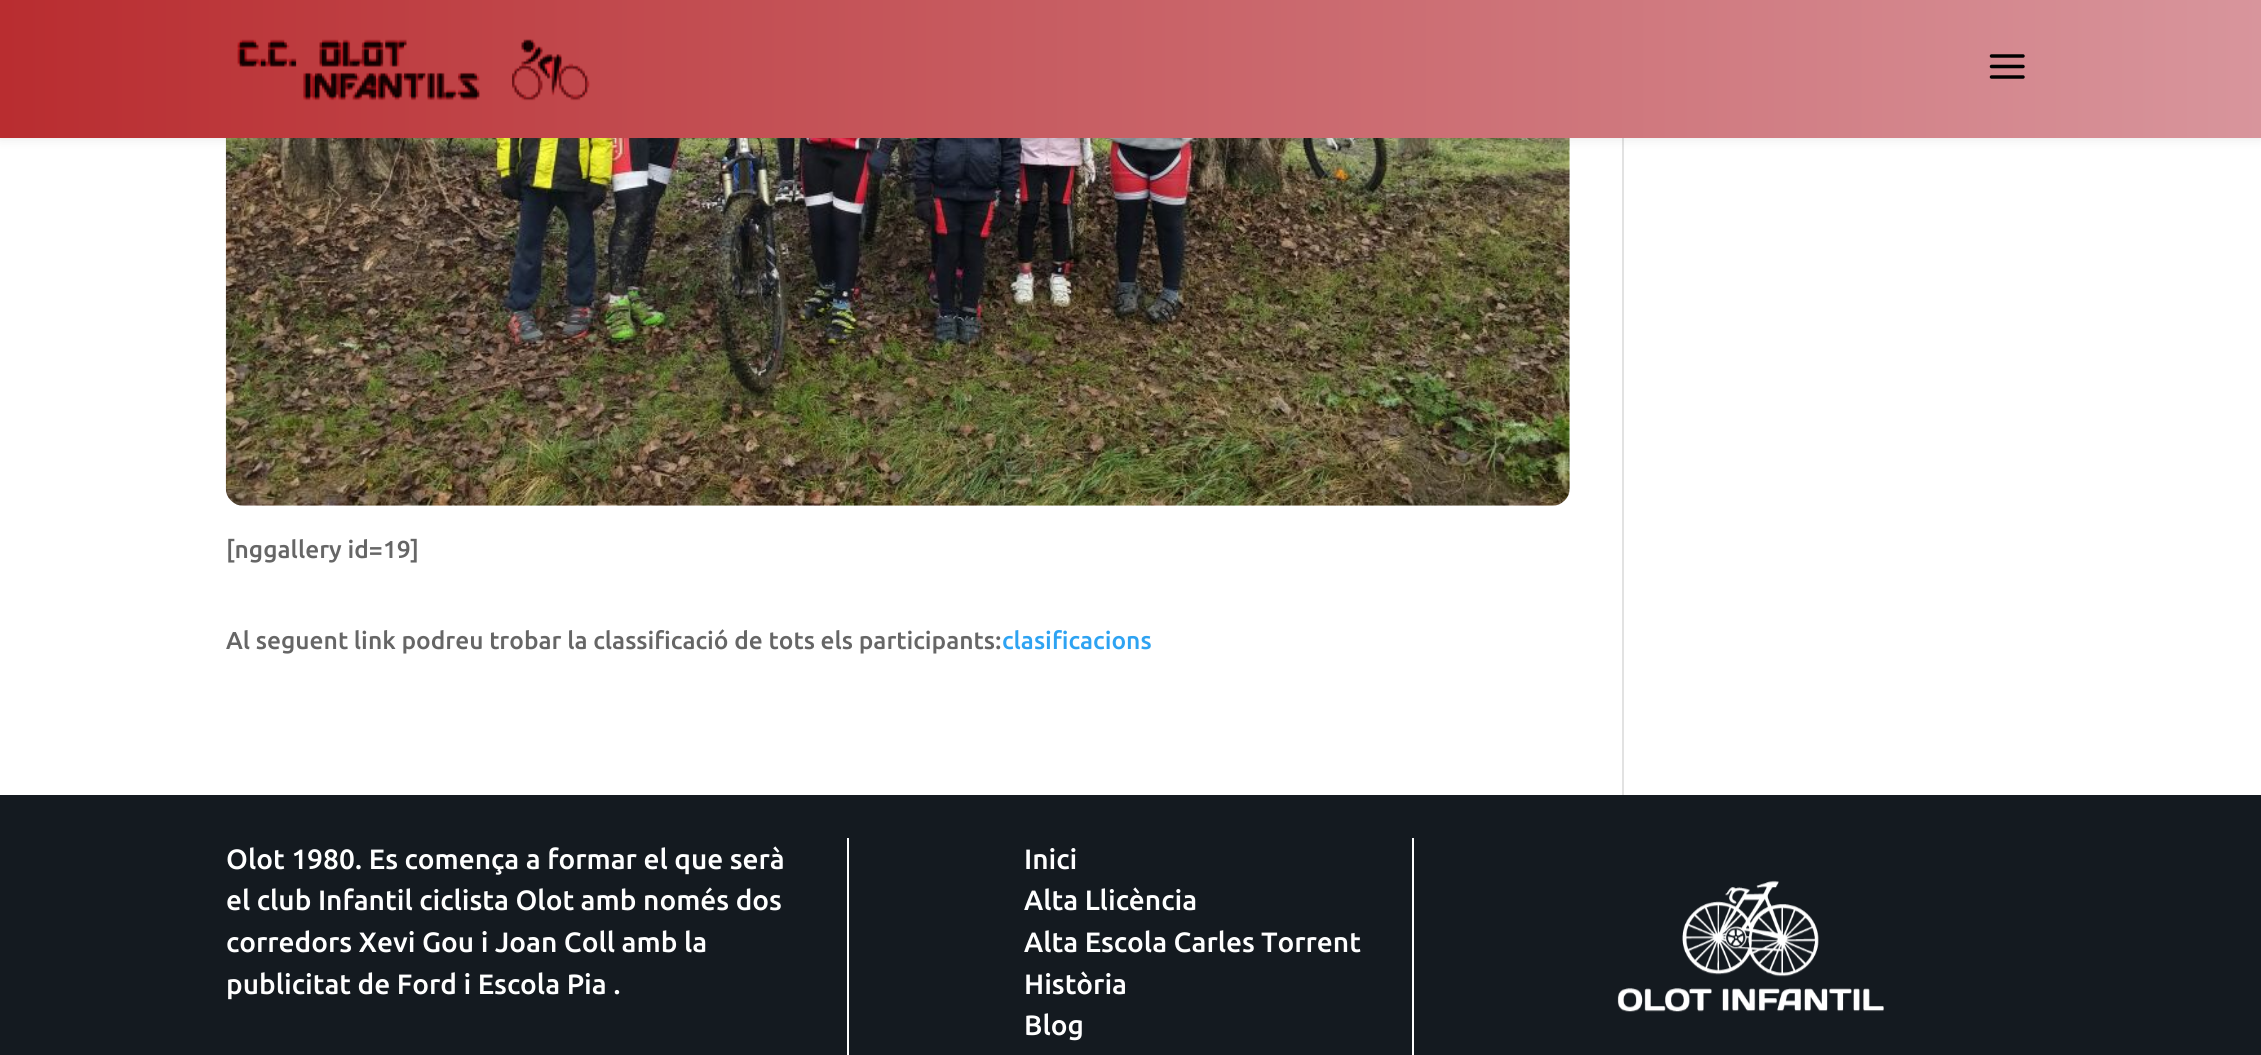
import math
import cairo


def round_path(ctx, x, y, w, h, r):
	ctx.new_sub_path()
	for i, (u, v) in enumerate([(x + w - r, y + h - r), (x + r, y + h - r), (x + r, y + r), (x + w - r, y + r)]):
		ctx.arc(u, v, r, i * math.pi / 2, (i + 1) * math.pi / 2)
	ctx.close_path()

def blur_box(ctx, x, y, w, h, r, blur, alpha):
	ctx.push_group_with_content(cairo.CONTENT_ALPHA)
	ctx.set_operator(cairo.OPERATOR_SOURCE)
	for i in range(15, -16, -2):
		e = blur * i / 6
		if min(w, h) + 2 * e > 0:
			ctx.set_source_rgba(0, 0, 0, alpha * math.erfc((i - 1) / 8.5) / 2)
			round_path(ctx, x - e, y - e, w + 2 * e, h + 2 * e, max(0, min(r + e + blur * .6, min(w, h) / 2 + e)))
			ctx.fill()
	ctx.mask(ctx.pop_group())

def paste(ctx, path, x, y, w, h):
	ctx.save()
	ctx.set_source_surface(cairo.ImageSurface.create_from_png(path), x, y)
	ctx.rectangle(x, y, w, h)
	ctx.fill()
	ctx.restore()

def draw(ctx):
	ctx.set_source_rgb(1, 1, 1)
	ctx.paint()
	paste(ctx, 'media/3.png', 225, 138, 1345, 368)
	ctx.set_source_rgb(0.886, 0.886, 0.886)
	ctx.rectangle(1622, 138, 2, 657)
	ctx.fill()
	ctx.set_source_rgb(0, 0, 0)
	blur_box(ctx, 0, 0, 2261, 138, 0, 6, 0.1)
	gradient = cairo.LinearGradient(0, 69, 2261, 69)
	gradient.add_color_stop_rgba(0, 0.725, 0.176, 0.188, 1)
	gradient.add_color_stop_rgba(1, 0.847, 0.584, 0.612, 1)
	ctx.set_source(gradient)
	ctx.rectangle(0, 0, 2261, 138)
	ctx.fill()
	paste(ctx, 'media/1.png', 237, 39, 353, 62)
	paste(ctx, 'media/2.png', 1989, 54, 36, 25)
	ctx.select_font_face('Ubuntu Medium')
	ctx.set_font_size(24.5)
	ctx.set_source_rgb(0.4, 0.4, 0.4)
	ctx.move_to(226, 558)
	ctx.show_text('[nggallery id=19]')
	ctx.move_to(226, 649)
	ctx.show_text('Al seguent link podreu trobar la classificació de tots els participants:')
	ctx.set_source_rgb(0.18, 0.639, 0.949)
	ctx.move_to(1002, 649)
	ctx.show_text('clasificacions')
	ctx.set_source_rgb(0.082, 0.102, 0.125)
	ctx.rectangle(0, 795, 2261, 260)
	ctx.fill()
	ctx.set_font_size(28)
	ctx.set_source_rgb(1, 1, 1)
	for x, y, s in [
		(226, 869, 'Olot 1980. Es comença a formar el que serà'),
		(226, 910, 'el club Infantil ciclista Olot amb només dos'),
		(226, 952, 'corredors Xevi Gou i Joan Coll amb la'),
		(226, 994, 'publicitat de Ford i Escola Pia .'),
	]:
		ctx.move_to(x, y)
		ctx.show_text(s)
	ctx.rectangle(1412, 838, 2, 217)
	ctx.fill()
	ctx.rectangle(847, 838, 2, 217)
	ctx.fill()
	for x, y, s in [
		(1024, 869, 'Inici'),
		(1024, 910, 'Alta Llicència'),
		(1024, 952, 'Alta Escola Carles Torrent'),
		(1024, 994, 'Història'),
		(1024, 1035, 'Blog'),
	]:
		ctx.move_to(x, y)
		ctx.show_text(s)
	paste(ctx, 'media/4.png', 1617, 880, 267, 132)


surface = cairo.ImageSurface(cairo.FORMAT_RGB24, 2261, 1055)
ctx = cairo.Context(surface)
options = cairo.FontOptions()
options.set_hint_metrics(cairo.HINT_METRICS_OFF)
options.set_hint_style(cairo.HINT_STYLE_NONE)
ctx.set_font_options(options)
ctx.set_miter_limit(4)
draw(ctx)
surface.write_to_png('image.png')
